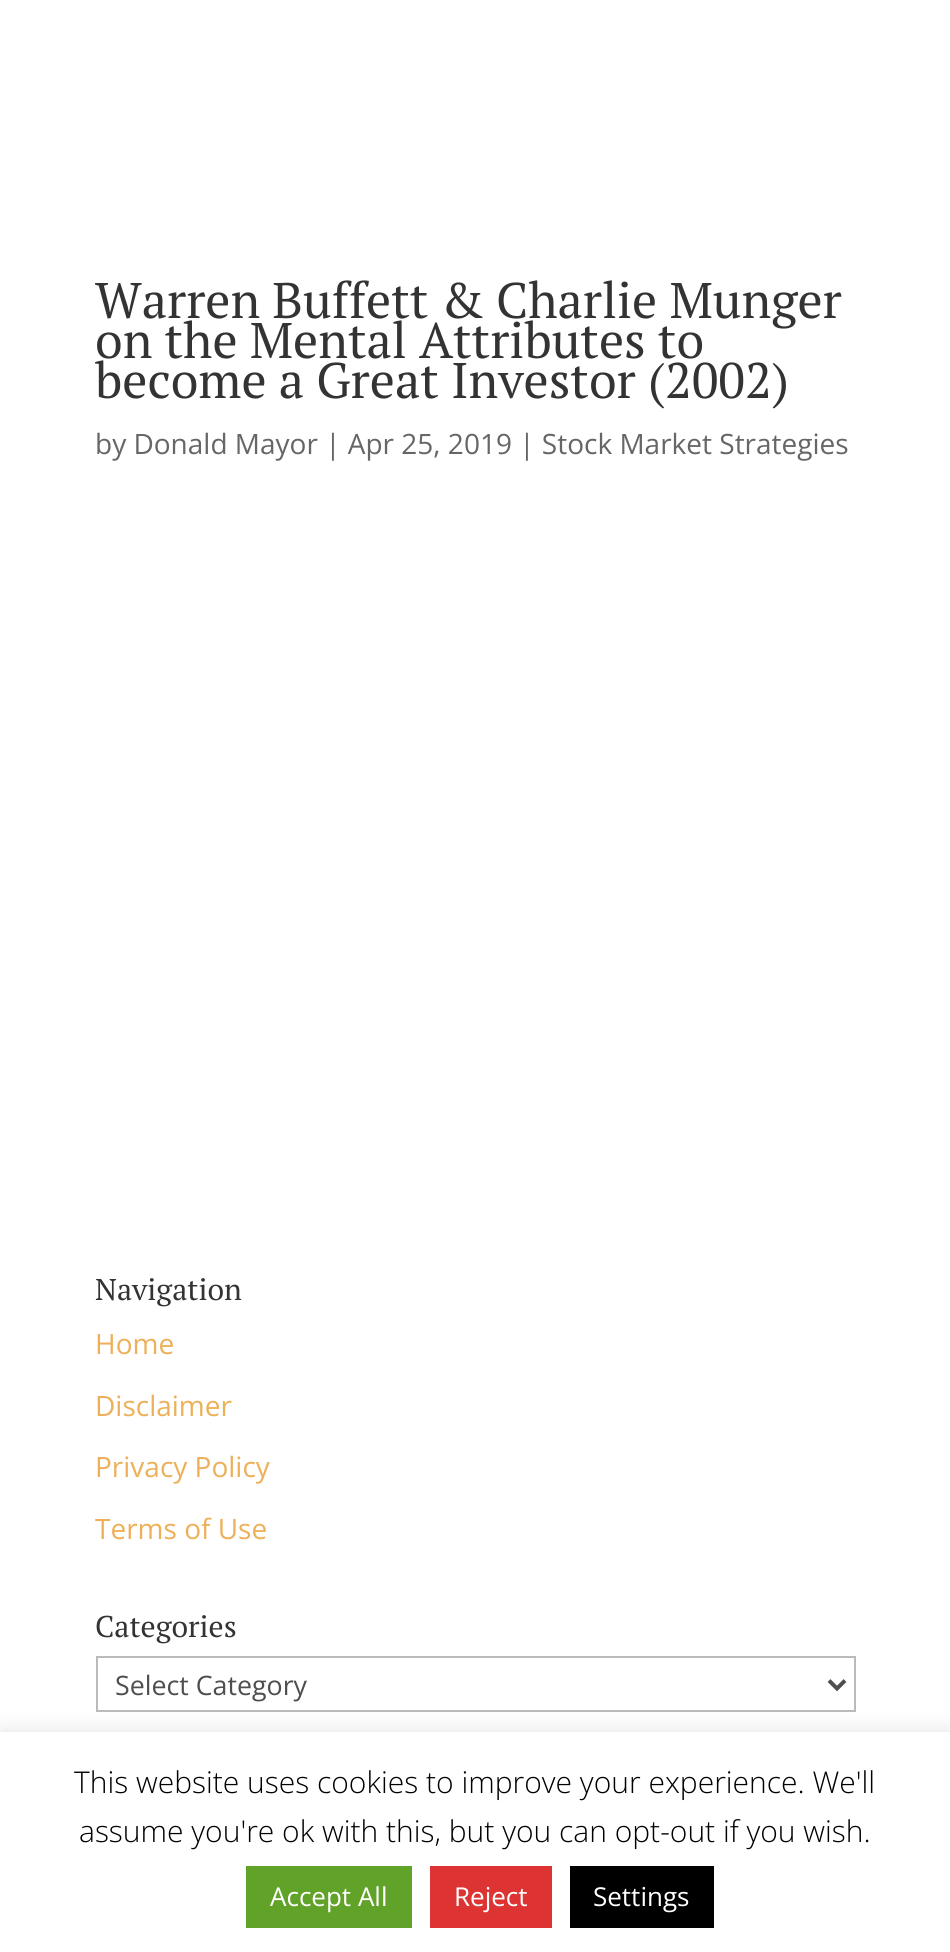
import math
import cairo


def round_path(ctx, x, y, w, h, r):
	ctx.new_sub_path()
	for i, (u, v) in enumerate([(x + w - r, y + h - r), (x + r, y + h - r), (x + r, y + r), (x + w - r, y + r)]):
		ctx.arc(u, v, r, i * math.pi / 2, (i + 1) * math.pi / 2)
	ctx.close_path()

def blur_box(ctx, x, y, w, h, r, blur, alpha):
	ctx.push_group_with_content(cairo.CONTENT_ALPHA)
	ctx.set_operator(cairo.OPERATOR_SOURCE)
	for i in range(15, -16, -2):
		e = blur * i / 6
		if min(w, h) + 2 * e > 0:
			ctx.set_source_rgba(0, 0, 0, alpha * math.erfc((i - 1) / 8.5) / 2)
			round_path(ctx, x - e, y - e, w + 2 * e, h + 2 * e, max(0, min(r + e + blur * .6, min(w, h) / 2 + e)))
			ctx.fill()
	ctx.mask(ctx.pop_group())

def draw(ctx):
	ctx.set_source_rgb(1, 1, 1)
	ctx.paint()
	ctx.select_font_face('PT Serif')
	ctx.set_font_size(50)
	ctx.set_source_rgb(0.2, 0.2, 0.2)
	for x, y, s in [
		(95, 318, 'Warren Buffett & Charlie Munger'),
		(95, 358, 'on the Mental Attributes to'),
		(95, 398, 'become a Great Investor (2002)'),
	]:
		ctx.move_to(x, y)
		ctx.show_text(s)
	ctx.select_font_face('Open Sans')
	ctx.set_font_size(28)
	ctx.set_source_rgb(0.4, 0.4, 0.4)
	ctx.move_to(95, 454)
	ctx.show_text('by Donald Mayor | Apr 25, 2019 | Stock Market Strategies')
	ctx.select_font_face('PT Serif')
	ctx.set_font_size(30)
	ctx.set_source_rgb(0.2, 0.2, 0.2)
	ctx.move_to(95, 1300)
	ctx.show_text('Navigation')
	ctx.select_font_face('Open Sans')
	ctx.set_font_size(28)
	ctx.set_source_rgb(0.929, 0.69, 0.349)
	for x, y, s in [
		(95, 1354, 'Home'),
		(95, 1416, 'Disclaimer'),
		(95, 1477, 'Privacy Policy'),
		(95, 1539, 'Terms of Use'),
	]:
		ctx.move_to(x, y)
		ctx.show_text(s)
	ctx.select_font_face('PT Serif')
	ctx.set_font_size(30)
	ctx.set_source_rgb(0.2, 0.2, 0.2)
	ctx.move_to(95, 1637)
	ctx.show_text('Categories')
	ctx.rectangle(97, 1657, 758, 54)
	ctx.set_source_rgb(0.733, 0.733, 0.733)
	ctx.stroke()
	ctx.new_path()
	ctx.move_to(829, 1680.5)
	ctx.line_to(837, 1688.5)
	ctx.line_to(845, 1680.5)
	ctx.set_source_rgb(0.306, 0.306, 0.306)
	ctx.set_line_width(4)
	ctx.stroke()
	ctx.select_font_face('Open Sans')
	ctx.set_font_size(26.75)
	ctx.move_to(115, 1695)
	ctx.show_text('Select Category')
	ctx.set_source_rgb(0.675, 0.671, 0.671)
	blur_box(ctx, 0, 1730, 950, 220, 0, 10, 0.3)
	ctx.set_source_rgb(1, 1, 1)
	ctx.rectangle(0, 1732, 950, 220)
	ctx.fill()
	ctx.select_font_face('Open Sans Light')
	ctx.set_font_size(30)
	ctx.set_source_rgb(0, 0, 0)
	ctx.move_to(74, 1793)
	ctx.show_text('This website uses cookies to improve your experience. We\'ll')
	ctx.move_to(79, 1842)
	ctx.show_text('assume you\'re ok with this, but you can opt-out if you wish.')
	ctx.set_source_rgb(0.38, 0.635, 0.161)
	ctx.rectangle(246, 1866, 166, 62)
	ctx.fill()
	ctx.select_font_face('Open Sans')
	ctx.set_font_size(26)
	ctx.set_source_rgb(1, 1, 1)
	ctx.move_to(270, 1906)
	ctx.show_text('Accept All')
	ctx.set_source_rgb(0.867, 0.2, 0.2)
	ctx.rectangle(430, 1866, 122, 62)
	ctx.fill()
	ctx.set_source_rgb(1, 1, 1)
	ctx.move_to(454, 1906)
	ctx.show_text('Reject')
	ctx.set_source_rgb(0, 0, 0)
	ctx.rectangle(570, 1866, 144, 62)
	ctx.fill()
	ctx.set_source_rgb(1, 1, 1)
	ctx.move_to(593, 1906)
	ctx.show_text('Settings')


surface = cairo.ImageSurface(cairo.FORMAT_RGB24, 950, 1952)
ctx = cairo.Context(surface)
options = cairo.FontOptions()
options.set_hint_metrics(cairo.HINT_METRICS_OFF)
options.set_hint_style(cairo.HINT_STYLE_NONE)
ctx.set_font_options(options)
ctx.set_miter_limit(4)
draw(ctx)
surface.write_to_png('image.png')
